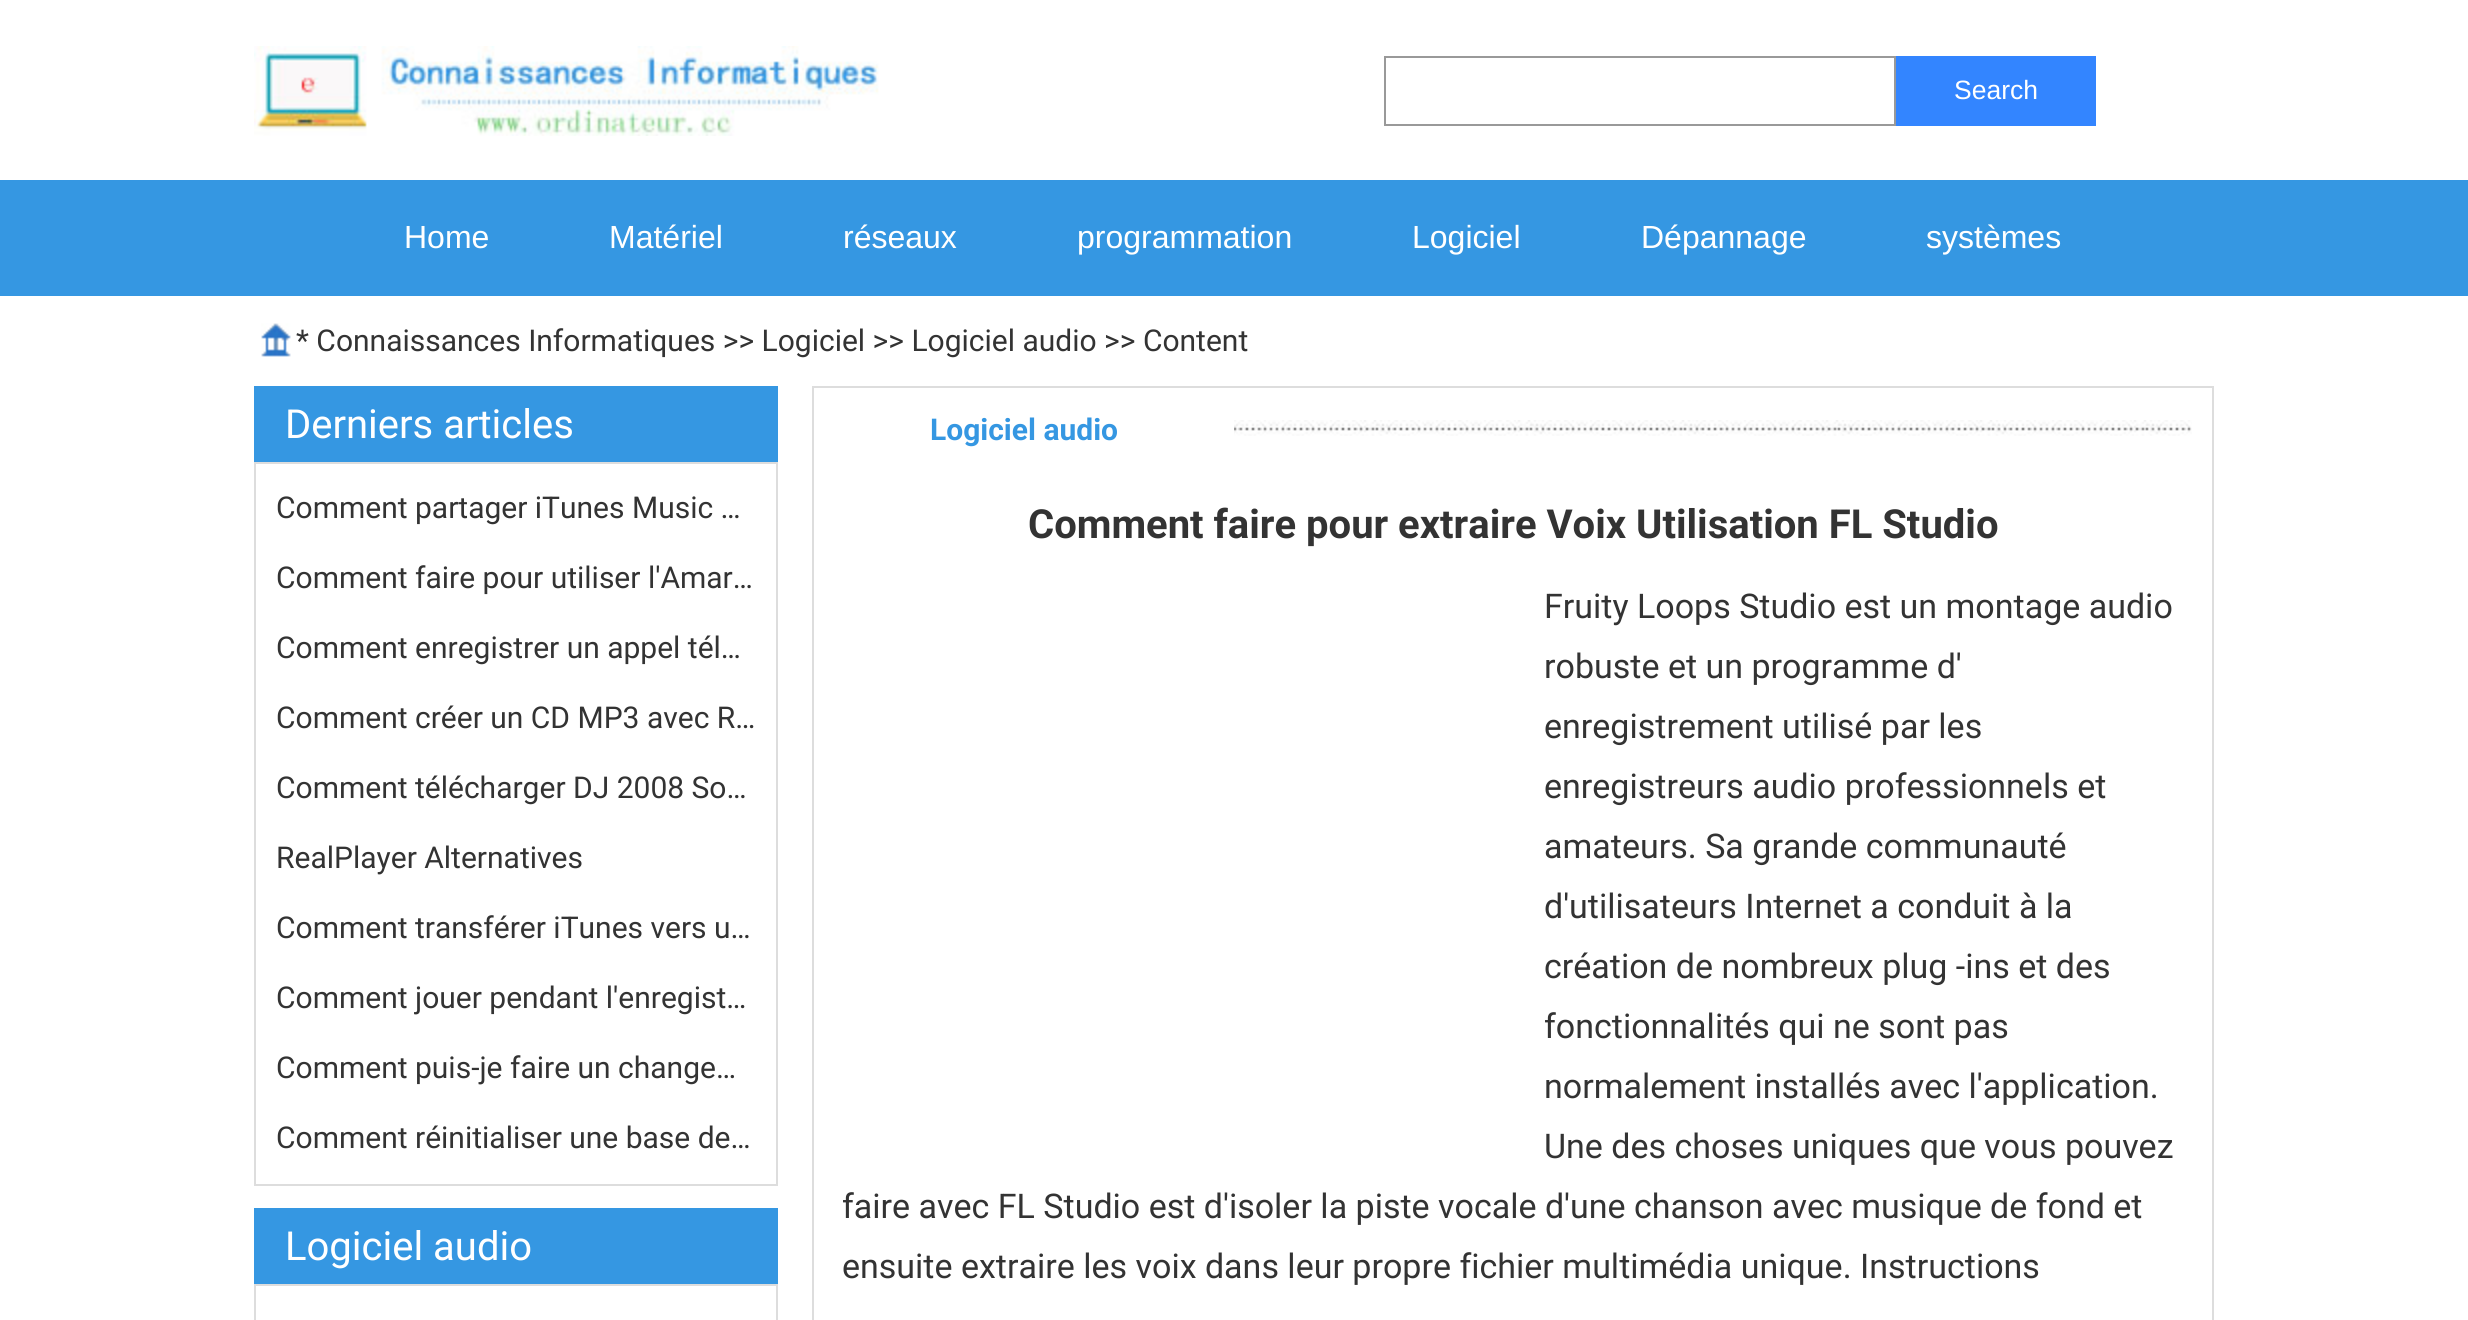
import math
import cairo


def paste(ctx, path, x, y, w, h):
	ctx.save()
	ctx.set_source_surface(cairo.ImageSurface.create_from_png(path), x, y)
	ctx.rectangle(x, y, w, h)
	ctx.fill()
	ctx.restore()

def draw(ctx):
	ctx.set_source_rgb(1, 1, 1)
	ctx.paint()
	paste(ctx, 'media/1.png', 254, 46, 625, 90)
	ctx.rectangle(1385, 57, 510, 68)
	ctx.set_source_rgb(0.6, 0.6, 0.6)
	ctx.stroke()
	ctx.set_source_rgb(0.2, 0.522, 1)
	ctx.rectangle(1896, 56, 200, 70)
	ctx.fill()
	ctx.select_font_face('Liberation Sans')
	ctx.set_font_size(26.5)
	ctx.set_source_rgb(1, 1, 1)
	ctx.move_to(1954, 99)
	ctx.show_text('Search')
	ctx.set_source_rgb(0.208, 0.592, 0.886)
	ctx.rectangle(0, 180, 2468, 116)
	ctx.fill()
	ctx.set_font_size(32)
	ctx.set_source_rgb(1, 1, 1)
	for x, y, s in [
		(404, 248, 'Home'),
		(609, 248, 'Matériel'),
		(843, 248, 'réseaux'),
		(1077, 248, 'programmation'),
		(1412, 248, 'Logiciel'),
		(1641, 248, 'Dépannage'),
		(1926, 248, 'systèmes'),
	]:
		ctx.move_to(x, y)
		ctx.show_text(s)
	paste(ctx, 'media/2.png', 261, 323, 30, 34)
	ctx.select_font_face('Roboto')
	ctx.set_font_size(30)
	ctx.set_source_rgb(0.2, 0.2, 0.2)
	ctx.move_to(296, 351)
	ctx.show_text('* Connaissances Informatiques >> Logiciel >> Logiciel audio >> Content')
	ctx.set_source_rgb(0.208, 0.592, 0.886)
	ctx.rectangle(254, 386, 524, 76)
	ctx.fill()
	ctx.set_font_size(40)
	ctx.set_source_rgb(1, 1, 1)
	ctx.move_to(285, 438)
	ctx.show_text('Derniers articles')
	ctx.rectangle(255, 463, 522, 722)
	ctx.set_source_rgb(0.867, 0.867, 0.867)
	ctx.stroke()
	ctx.set_font_size(30)
	ctx.set_source_rgb(0.2, 0.2, 0.2)
	for x, y, s in [
		(276, 518, 'Comment partager iTunes Music …'),
		(276, 588, 'Comment faire pour utiliser l\'Amar…'),
		(276, 658, 'Comment enregistrer un appel tél…'),
		(276, 728, 'Comment créer un CD MP3 avec R…'),
		(276, 798, 'Comment télécharger DJ 2008 So…'),
		(276, 868, 'RealPlayer Alternatives'),
		(276, 938, 'Comment transférer iTunes vers u…'),
		(276, 1008, 'Comment jouer pendant l\'enregist…'),
		(276, 1078, 'Comment puis-je faire un change…'),
		(276, 1148, 'Comment réinitialiser une base de…'),
	]:
		ctx.move_to(x, y)
		ctx.show_text(s)
	ctx.set_source_rgb(0.208, 0.592, 0.886)
	ctx.rectangle(254, 1208, 524, 76)
	ctx.fill()
	ctx.set_font_size(40)
	ctx.set_source_rgb(1, 1, 1)
	ctx.move_to(285, 1260)
	ctx.show_text('Logiciel audio')
	ctx.rectangle(255, 1285, 522, 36)
	ctx.set_source_rgb(0.867, 0.867, 0.867)
	ctx.stroke()
	ctx.rectangle(813, 387, 1400, 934)
	ctx.stroke()
	ctx.select_font_face('Roboto', cairo.FONT_SLANT_NORMAL, cairo.FONT_WEIGHT_BOLD)
	ctx.set_font_size(30)
	ctx.set_source_rgb(0.208, 0.592, 0.886)
	ctx.move_to(930, 440)
	ctx.show_text('Logiciel audio')
	paste(ctx, 'media/3.png', 1234, 420, 958, 16)
	ctx.set_font_size(40)
	ctx.set_source_rgb(0.2, 0.2, 0.2)
	ctx.move_to(1028, 538)
	ctx.show_text('Comment faire pour extraire Voix Utilisation FL Studio')
	ctx.select_font_face('Roboto')
	ctx.set_font_size(34)
	for x, y, s in [
		(1544, 618, 'Fruity Loops Studio est un montage audio'),
		(1544, 678, 'robuste et un programme d\''),
		(1544, 738, 'enregistrement utilisé par les'),
		(1544, 798, 'enregistreurs audio professionnels et'),
		(1544, 858, 'amateurs. Sa grande communauté'),
		(1544, 918, 'd\'utilisateurs Internet a conduit à la'),
		(1544, 978, 'création de nombreux plug -ins et des'),
		(1544, 1038, 'fonctionnalités qui ne sont pas'),
		(1544, 1098, 'normalement installés avec l\'application.'),
		(1544, 1158, 'Une des choses uniques que vous pouvez'),
		(842, 1218, 'faire avec FL Studio est d\'isoler la piste vocale d\'une chanson avec musique de fond et'),
		(842, 1278, 'ensuite extraire les voix dans leur propre fichier multimédia unique. Instructions'),
	]:
		ctx.move_to(x, y)
		ctx.show_text(s)


surface = cairo.ImageSurface(cairo.FORMAT_RGB24, 2468, 1320)
ctx = cairo.Context(surface)
options = cairo.FontOptions()
options.set_hint_metrics(cairo.HINT_METRICS_OFF)
options.set_hint_style(cairo.HINT_STYLE_NONE)
ctx.set_font_options(options)
ctx.set_miter_limit(4)
draw(ctx)
surface.write_to_png('image.png')
